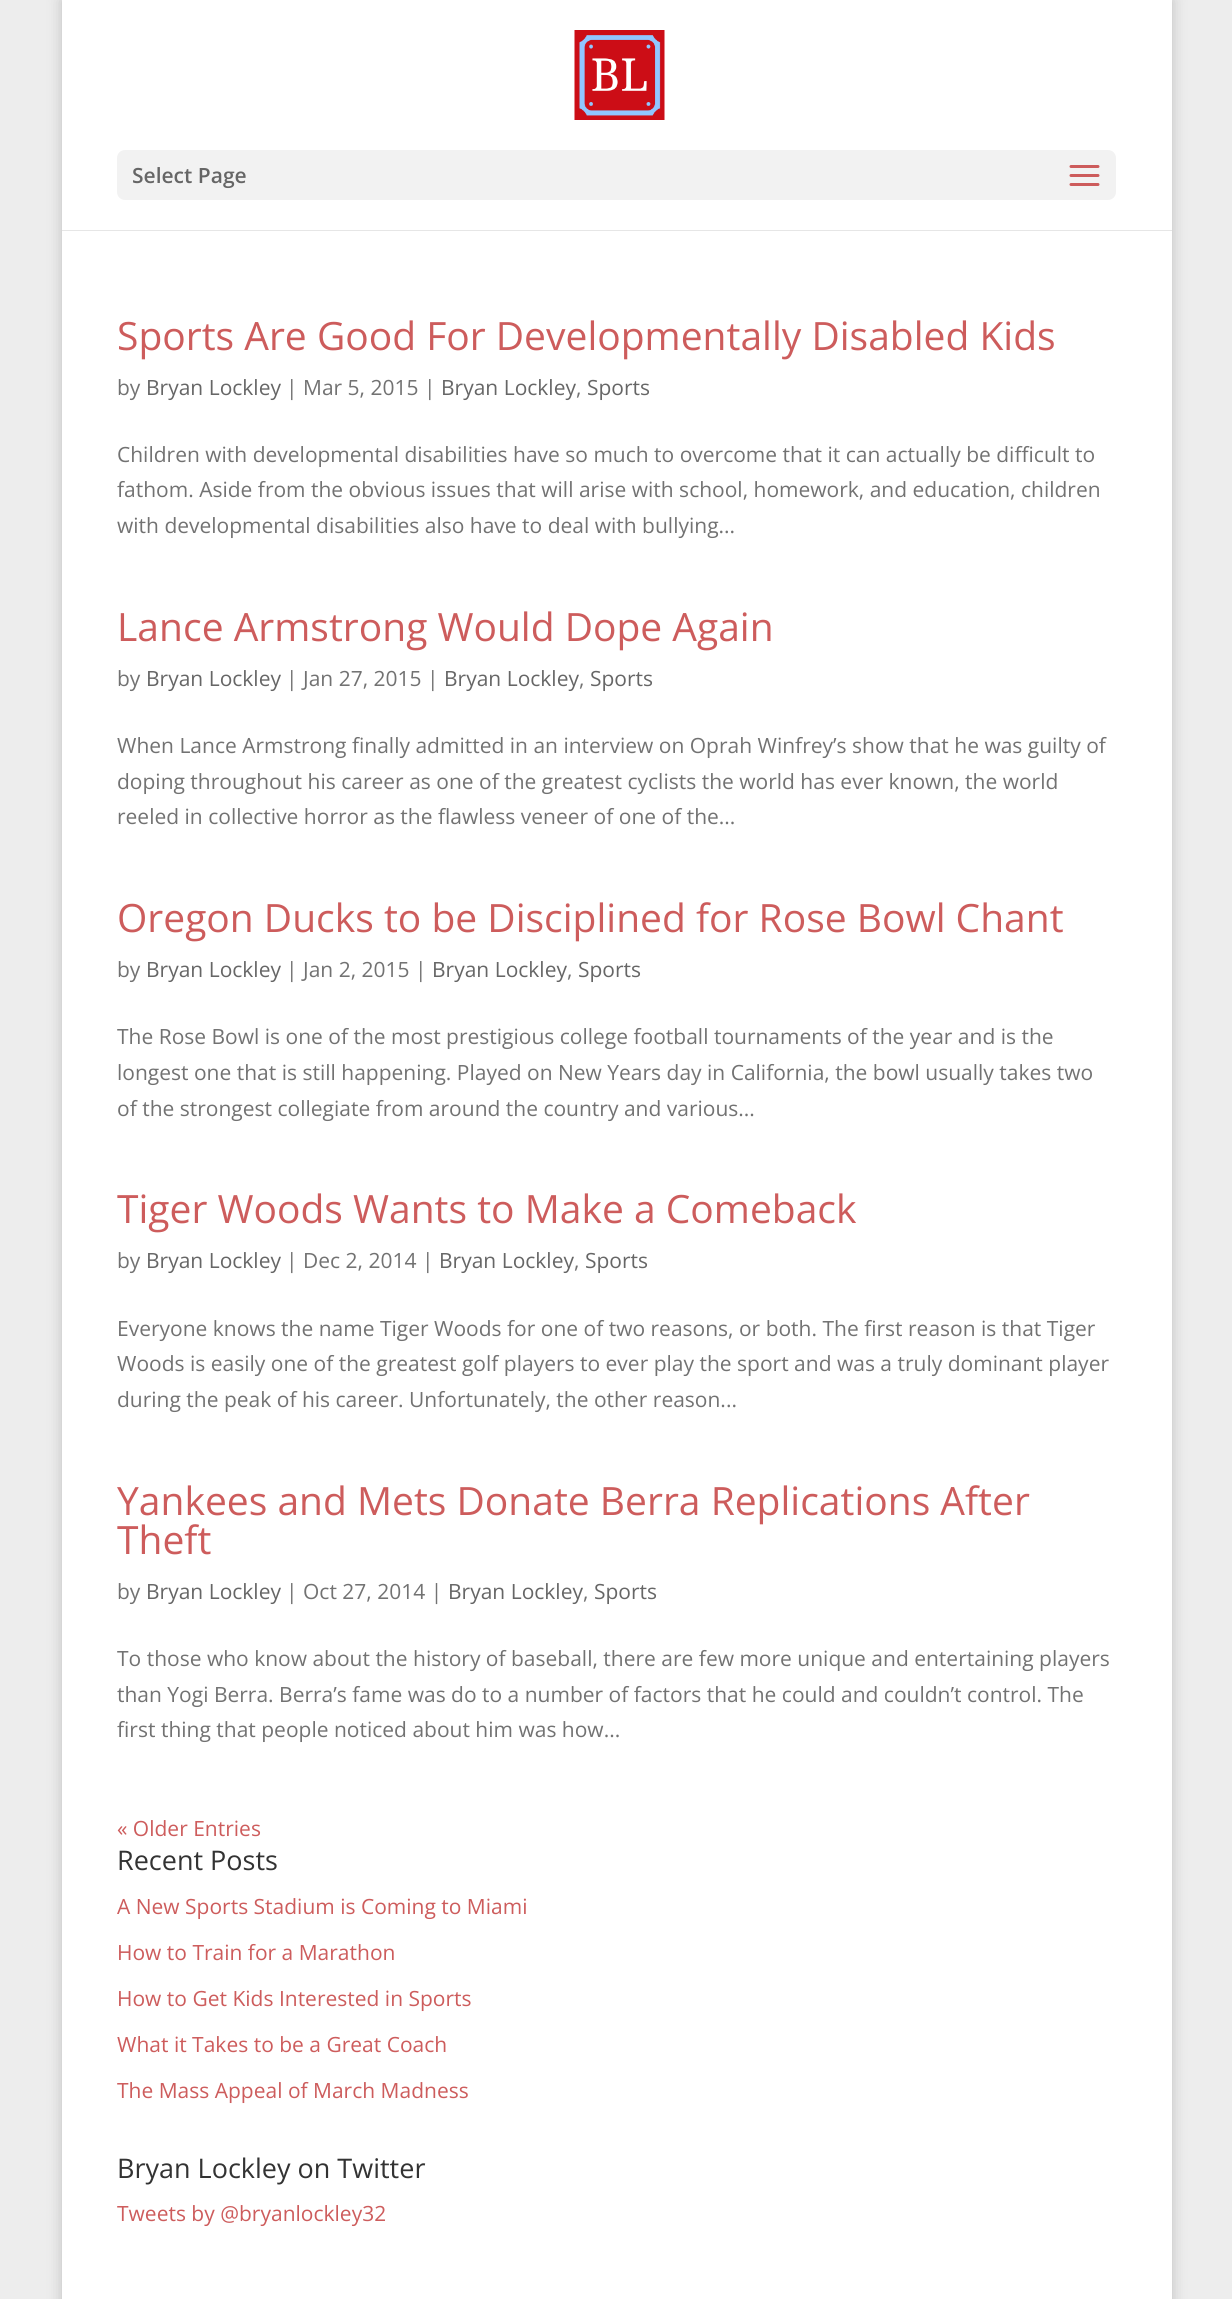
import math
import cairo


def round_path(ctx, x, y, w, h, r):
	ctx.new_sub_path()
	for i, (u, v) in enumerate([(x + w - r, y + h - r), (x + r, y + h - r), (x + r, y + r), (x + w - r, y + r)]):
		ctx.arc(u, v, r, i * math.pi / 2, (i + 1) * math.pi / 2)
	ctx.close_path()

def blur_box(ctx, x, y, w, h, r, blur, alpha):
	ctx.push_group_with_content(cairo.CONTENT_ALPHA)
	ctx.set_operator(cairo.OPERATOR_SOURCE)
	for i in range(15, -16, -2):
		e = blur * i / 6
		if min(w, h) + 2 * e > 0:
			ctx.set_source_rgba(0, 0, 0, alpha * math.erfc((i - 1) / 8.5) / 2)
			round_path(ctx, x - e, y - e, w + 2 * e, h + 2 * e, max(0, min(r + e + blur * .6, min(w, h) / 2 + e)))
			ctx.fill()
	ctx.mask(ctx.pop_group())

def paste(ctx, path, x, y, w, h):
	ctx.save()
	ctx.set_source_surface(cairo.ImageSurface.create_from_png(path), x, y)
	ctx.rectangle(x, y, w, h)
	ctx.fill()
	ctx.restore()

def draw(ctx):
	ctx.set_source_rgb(0.929, 0.929, 0.929)
	ctx.paint()
	ctx.set_source_rgb(0, 0, 0)
	blur_box(ctx, 62, 0, 1110, 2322, 0, 7.5, 0.2)
	ctx.set_source_rgb(0.902, 0.902, 0.902)
	ctx.new_path()
	ctx.move_to(62, 230)
	ctx.line_to(62, 231)
	ctx.line_to(1172, 231)
	ctx.line_to(1172, 2)
	ctx.line_to(1172, 230)
	ctx.close_path()
	ctx.fill()
	ctx.set_source_rgb(1, 1, 1)
	ctx.rectangle(62, 0, 1110, 230)
	ctx.fill()
	paste(ctx, 'media/1.png', 574, 30, 91, 90)
	ctx.set_source_rgb(0.949, 0.949, 0.949)
	round_path(ctx, 117, 150, 999, 50, 8)
	ctx.fill()
	ctx.select_font_face('Open Sans SemiBold')
	ctx.set_font_size(21)
	ctx.set_source_rgb(0.4, 0.4, 0.4)
	ctx.move_to(132, 183)
	ctx.show_text('Select Page')
	paste(ctx, 'media/2.png', 1069, 165, 31, 21)
	ctx.set_source_rgb(1, 1, 1)
	ctx.rectangle(62, 231, 1110, 2068)
	ctx.fill()
	ctx.select_font_face('Open Sans')
	ctx.set_font_size(39)
	ctx.set_source_rgb(0.804, 0.361, 0.361)
	ctx.move_to(117, 350)
	ctx.show_text('Sports Are Good For Developmentally Disabled Kids')
	ctx.set_font_size(21)
	ctx.set_source_rgb(0.447, 0.447, 0.447)
	ctx.move_to(117, 395)
	ctx.show_text('by')
	ctx.set_source_rgb(0.4, 0.4, 0.4)
	ctx.move_to(146, 395)
	ctx.show_text('Bryan Lockley')
	ctx.set_source_rgb(0.447, 0.447, 0.447)
	ctx.move_to(286, 395)
	ctx.show_text('| Mar 5, 2015 |')
	ctx.set_source_rgb(0.4, 0.4, 0.4)
	ctx.move_to(441, 395)
	ctx.show_text('Bryan Lockley')
	ctx.set_source_rgb(0.447, 0.447, 0.447)
	ctx.move_to(576, 395)
	ctx.show_text(',')
	ctx.set_source_rgb(0.4, 0.4, 0.4)
	ctx.move_to(587, 395)
	ctx.show_text('Sports')
	ctx.set_source_rgb(0.447, 0.447, 0.447)
	for x, y, s in [
		(117, 462, 'Children with developmental disabilities have so much to overcome that it can actually be difficult to'),
		(117, 497, 'fathom. Aside from the obvious issues that will arise with school, homework, and education, children'),
		(117, 533, 'with developmental disabilities also have to deal with bullying...'),
	]:
		ctx.move_to(x, y)
		ctx.show_text(s)
	ctx.set_font_size(39)
	ctx.set_source_rgb(0.804, 0.361, 0.361)
	ctx.move_to(117, 641)
	ctx.show_text('Lance Armstrong Would Dope Again')
	ctx.set_font_size(21)
	ctx.set_source_rgb(0.447, 0.447, 0.447)
	ctx.move_to(117, 686)
	ctx.show_text('by')
	ctx.set_source_rgb(0.4, 0.4, 0.4)
	ctx.move_to(146, 686)
	ctx.show_text('Bryan Lockley')
	ctx.set_source_rgb(0.447, 0.447, 0.447)
	ctx.move_to(286, 686)
	ctx.show_text('| Jan 27, 2015 |')
	ctx.set_source_rgb(0.4, 0.4, 0.4)
	ctx.move_to(444, 686)
	ctx.show_text('Bryan Lockley')
	ctx.set_source_rgb(0.447, 0.447, 0.447)
	ctx.move_to(579, 686)
	ctx.show_text(',')
	ctx.set_source_rgb(0.4, 0.4, 0.4)
	ctx.move_to(590, 686)
	ctx.show_text('Sports')
	ctx.set_source_rgb(0.447, 0.447, 0.447)
	for x, y, s in [
		(117, 753, 'When Lance Armstrong finally admitted in an interview on Oprah Winfrey’s show that he was guilty of'),
		(117, 789, 'doping throughout his career as one of the greatest cyclists the world has ever known, the world'),
		(117, 824, 'reeled in collective horror as the flawless veneer of one of the...'),
	]:
		ctx.move_to(x, y)
		ctx.show_text(s)
	ctx.set_font_size(39)
	ctx.set_source_rgb(0.804, 0.361, 0.361)
	ctx.move_to(117, 932)
	ctx.show_text('Oregon Ducks to be Disciplined for Rose Bowl Chant')
	ctx.set_font_size(21)
	ctx.set_source_rgb(0.447, 0.447, 0.447)
	ctx.move_to(117, 977)
	ctx.show_text('by')
	ctx.set_source_rgb(0.4, 0.4, 0.4)
	ctx.move_to(146, 977)
	ctx.show_text('Bryan Lockley')
	ctx.set_source_rgb(0.447, 0.447, 0.447)
	ctx.move_to(286, 977)
	ctx.show_text('| Jan 2, 2015 |')
	ctx.set_source_rgb(0.4, 0.4, 0.4)
	ctx.move_to(432, 977)
	ctx.show_text('Bryan Lockley')
	ctx.set_source_rgb(0.447, 0.447, 0.447)
	ctx.move_to(567, 977)
	ctx.show_text(',')
	ctx.set_source_rgb(0.4, 0.4, 0.4)
	ctx.move_to(578, 977)
	ctx.show_text('Sports')
	ctx.set_source_rgb(0.447, 0.447, 0.447)
	for x, y, s in [
		(117, 1044, 'The Rose Bowl is one of the most prestigious college football tournaments of the year and is the'),
		(117, 1080, 'longest one that is still happening. Played on New Years day in California, the bowl usually takes two'),
		(117, 1116, 'of the strongest collegiate from around the country and various...'),
	]:
		ctx.move_to(x, y)
		ctx.show_text(s)
	ctx.set_font_size(39)
	ctx.set_source_rgb(0.804, 0.361, 0.361)
	ctx.move_to(117, 1223)
	ctx.show_text('Tiger Woods Wants to Make a Comeback')
	ctx.set_font_size(21)
	ctx.set_source_rgb(0.447, 0.447, 0.447)
	ctx.move_to(117, 1268)
	ctx.show_text('by')
	ctx.set_source_rgb(0.4, 0.4, 0.4)
	ctx.move_to(146, 1268)
	ctx.show_text('Bryan Lockley')
	ctx.set_source_rgb(0.447, 0.447, 0.447)
	ctx.move_to(286, 1268)
	ctx.show_text('| Dec 2, 2014 |')
	ctx.set_source_rgb(0.4, 0.4, 0.4)
	ctx.move_to(439, 1268)
	ctx.show_text('Bryan Lockley')
	ctx.set_source_rgb(0.447, 0.447, 0.447)
	ctx.move_to(574, 1268)
	ctx.show_text(',')
	ctx.set_source_rgb(0.4, 0.4, 0.4)
	ctx.move_to(585, 1268)
	ctx.show_text('Sports')
	ctx.set_source_rgb(0.447, 0.447, 0.447)
	for x, y, s in [
		(117, 1336, 'Everyone knows the name Tiger Woods for one of two reasons, or both. The first reason is that Tiger'),
		(117, 1371, 'Woods is easily one of the greatest golf players to ever play the sport and was a truly dominant player'),
		(117, 1407, 'during the peak of his career. Unfortunately, the other reason...'),
	]:
		ctx.move_to(x, y)
		ctx.show_text(s)
	ctx.set_font_size(39)
	ctx.set_source_rgb(0.804, 0.361, 0.361)
	ctx.move_to(117, 1515)
	ctx.show_text('Yankees and Mets Donate Berra Replications After')
	ctx.move_to(117, 1554)
	ctx.show_text('Theft')
	ctx.set_font_size(21)
	ctx.set_source_rgb(0.447, 0.447, 0.447)
	ctx.move_to(117, 1599)
	ctx.show_text('by')
	ctx.set_source_rgb(0.4, 0.4, 0.4)
	ctx.move_to(146, 1599)
	ctx.show_text('Bryan Lockley')
	ctx.set_source_rgb(0.447, 0.447, 0.447)
	ctx.move_to(286, 1599)
	ctx.show_text('| Oct 27, 2014 |')
	ctx.set_source_rgb(0.4, 0.4, 0.4)
	ctx.move_to(448, 1599)
	ctx.show_text('Bryan Lockley')
	ctx.set_source_rgb(0.447, 0.447, 0.447)
	ctx.move_to(583, 1599)
	ctx.show_text(',')
	ctx.set_source_rgb(0.4, 0.4, 0.4)
	ctx.move_to(594, 1599)
	ctx.show_text('Sports')
	ctx.set_source_rgb(0.447, 0.447, 0.447)
	for x, y, s in [
		(117, 1666, 'To those who know about the history of baseball, there are few more unique and entertaining players'),
		(117, 1702, 'than Yogi Berra. Berra’s fame was do to a number of factors that he could and couldn’t control. The'),
		(117, 1737, 'first thing that people noticed about him was how...'),
	]:
		ctx.move_to(x, y)
		ctx.show_text(s)
	ctx.set_source_rgb(0.804, 0.361, 0.361)
	ctx.move_to(117, 1836)
	ctx.show_text('« Older Entries')
	ctx.set_font_size(27)
	ctx.set_source_rgb(0.2, 0.2, 0.2)
	ctx.move_to(117, 1870)
	ctx.show_text('Recent Posts')
	ctx.set_font_size(21)
	ctx.set_source_rgb(0.804, 0.361, 0.361)
	for x, y, s in [
		(117, 1914, 'A New Sports Stadium is Coming to Miami'),
		(117, 1960, 'How to Train for a Marathon'),
		(117, 2006, 'How to Get Kids Interested in Sports'),
		(117, 2052, 'What it Takes to be a Great Coach'),
		(117, 2098, 'The Mass Appeal of March Madness'),
	]:
		ctx.move_to(x, y)
		ctx.show_text(s)
	ctx.set_font_size(27)
	ctx.set_source_rgb(0.2, 0.2, 0.2)
	ctx.move_to(117, 2178)
	ctx.show_text('Bryan Lockley on Twitter')
	ctx.set_font_size(21)
	ctx.set_source_rgb(0.804, 0.361, 0.361)
	ctx.move_to(117, 2221)
	ctx.show_text('Tweets by @bryanlockley32')


surface = cairo.ImageSurface(cairo.FORMAT_RGB24, 1232, 2299)
ctx = cairo.Context(surface)
options = cairo.FontOptions()
options.set_hint_metrics(cairo.HINT_METRICS_OFF)
options.set_hint_style(cairo.HINT_STYLE_NONE)
ctx.set_font_options(options)
ctx.set_miter_limit(4)
draw(ctx)
surface.write_to_png('image.png')
